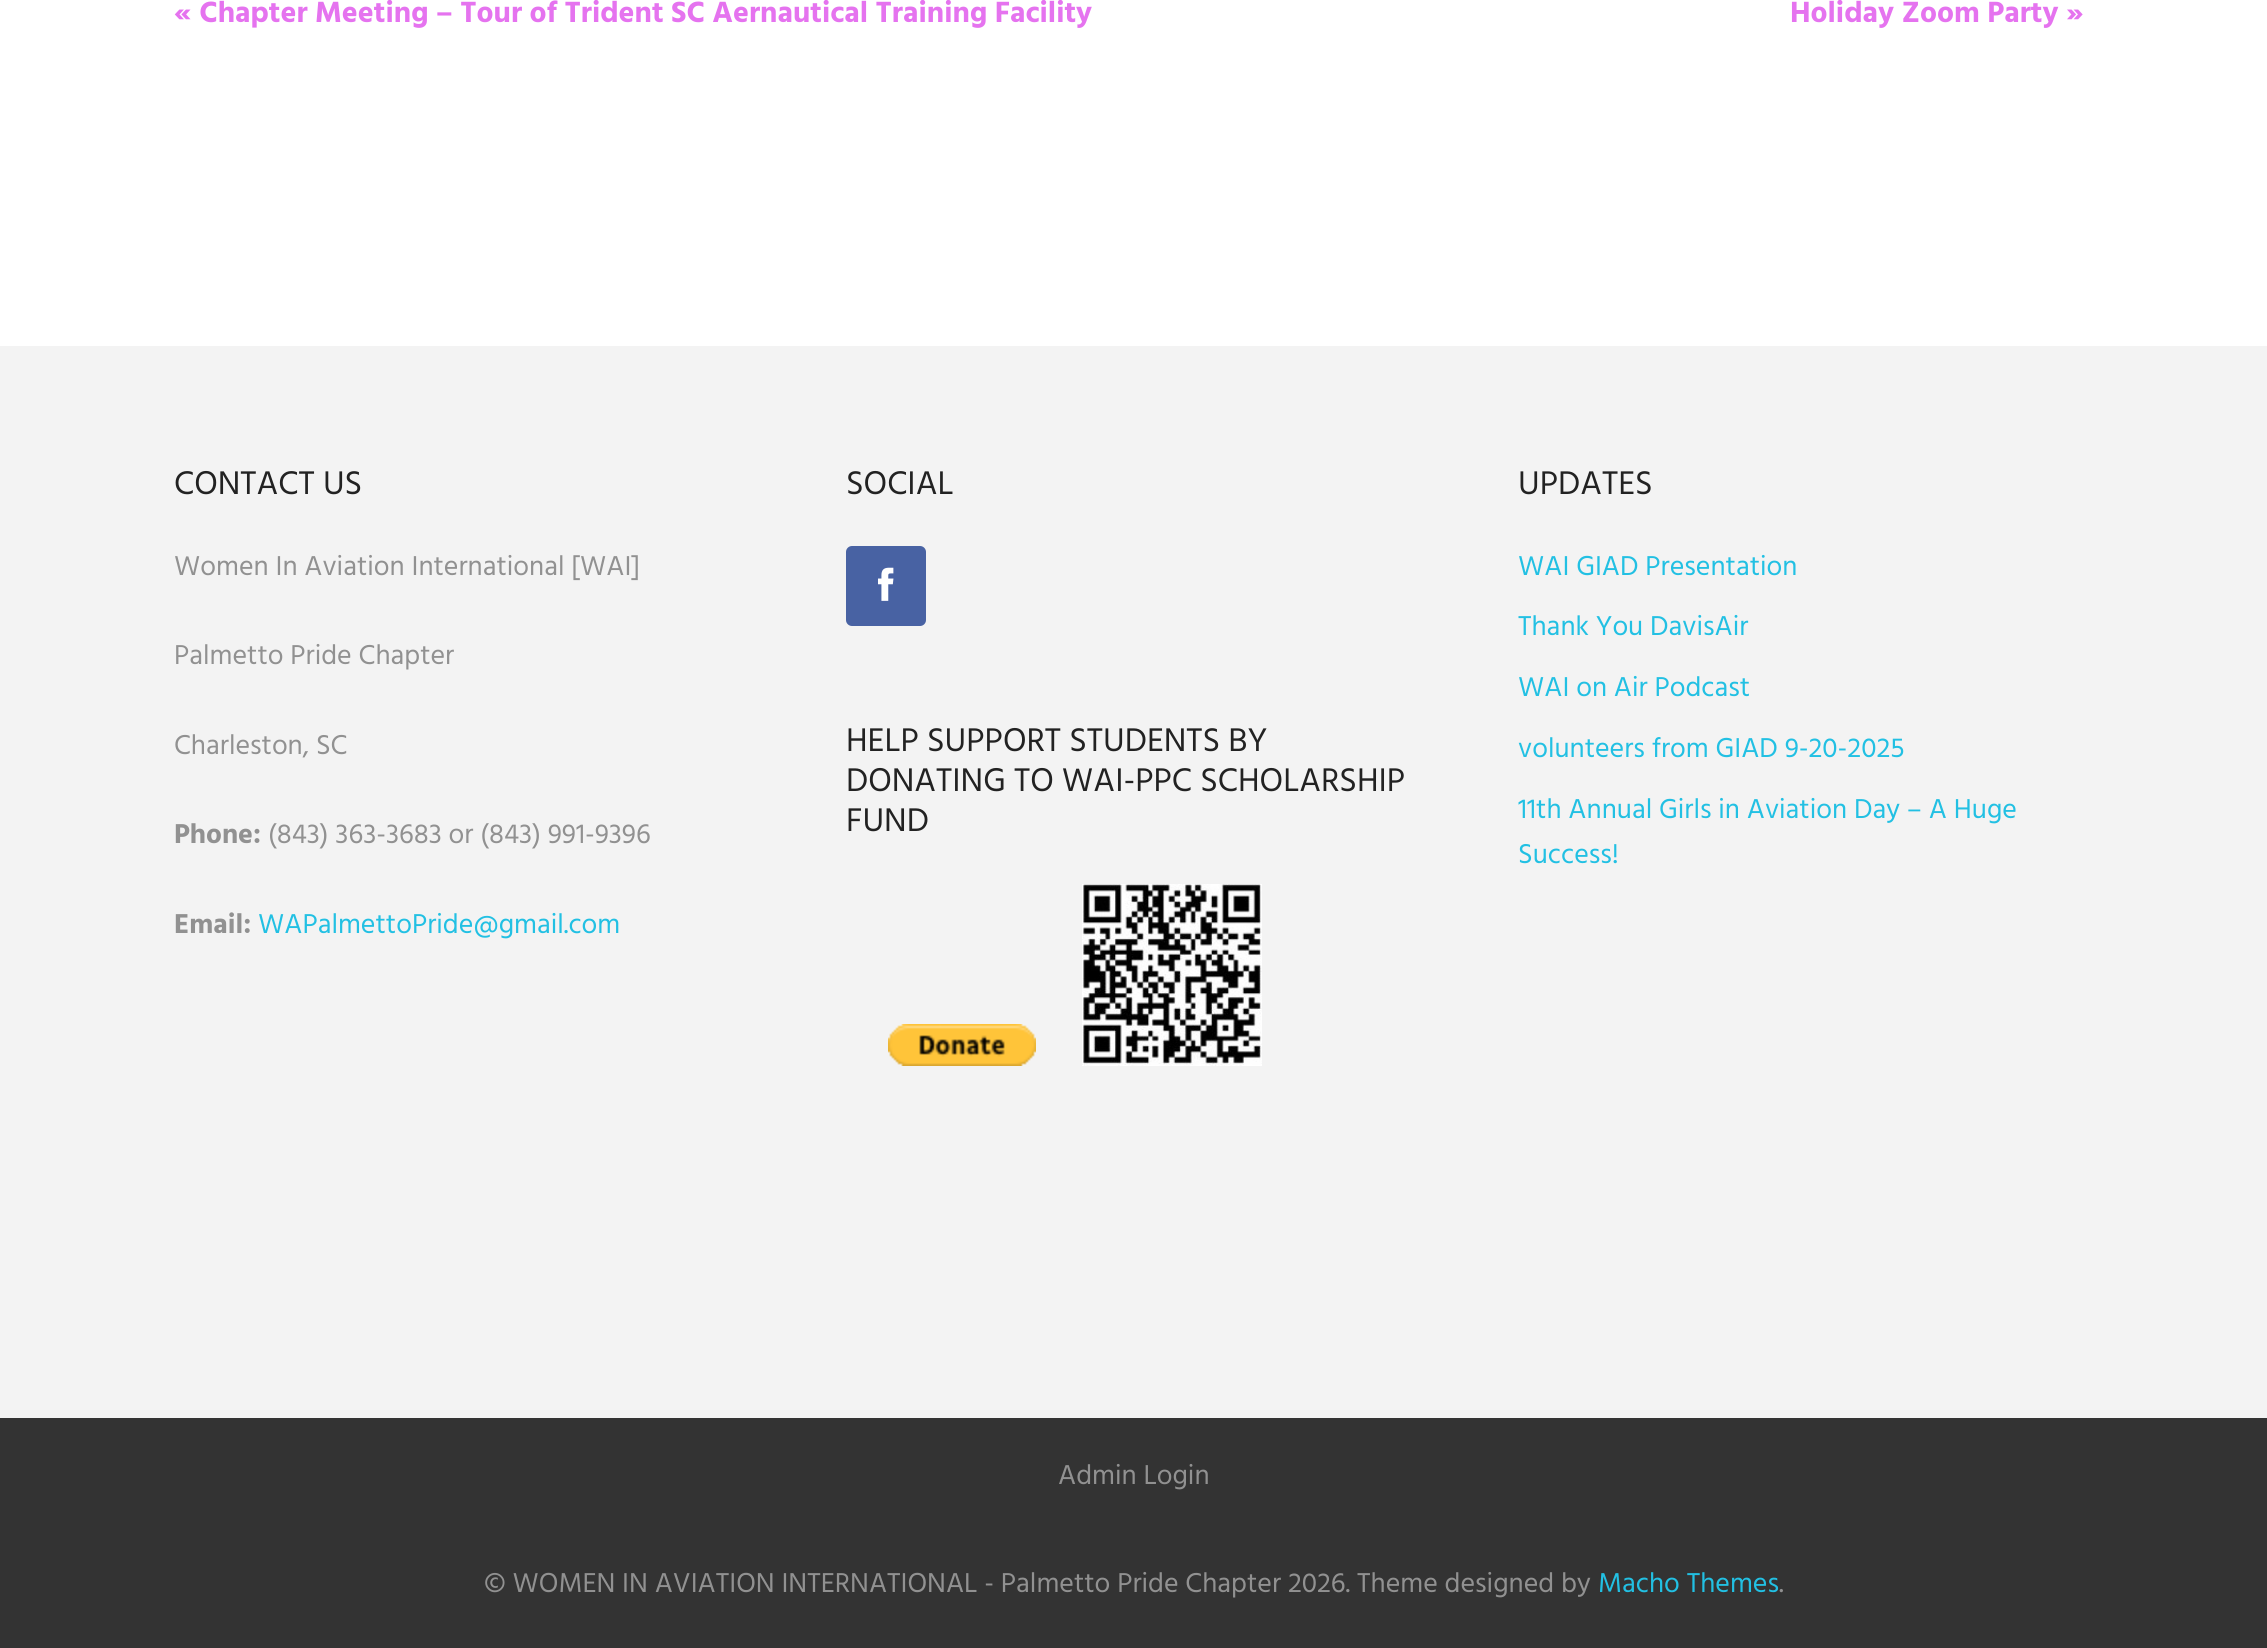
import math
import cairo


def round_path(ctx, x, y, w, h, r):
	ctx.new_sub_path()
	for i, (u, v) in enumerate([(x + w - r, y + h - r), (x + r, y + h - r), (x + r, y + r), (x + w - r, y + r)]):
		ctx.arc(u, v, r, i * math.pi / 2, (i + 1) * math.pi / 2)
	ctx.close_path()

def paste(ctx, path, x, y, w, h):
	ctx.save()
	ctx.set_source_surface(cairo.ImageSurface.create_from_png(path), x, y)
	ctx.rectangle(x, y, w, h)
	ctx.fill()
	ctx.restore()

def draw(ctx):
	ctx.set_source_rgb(1, 1, 1)
	ctx.paint()
	ctx.select_font_face('Hind', cairo.FONT_SLANT_NORMAL, cairo.FONT_WEIGHT_BOLD)
	ctx.set_font_size(30)
	ctx.set_source_rgb(0.898, 0.451, 0.937)
	ctx.move_to(174, 22)
	ctx.show_text('« Chapter Meeting – Tour of Trident SC Aernautical Training Facility')
	ctx.move_to(1790, 22)
	ctx.show_text('Holiday Zoom Party »')
	ctx.set_source_rgb(0.953, 0.953, 0.953)
	ctx.rectangle(0, 346, 2267, 1072)
	ctx.fill()
	ctx.select_font_face('Hind')
	ctx.set_font_size(33.6)
	ctx.set_source_rgb(0.133, 0.133, 0.133)
	ctx.move_to(174, 494)
	ctx.show_text('CONTACT US')
	ctx.set_font_size(28)
	ctx.set_source_rgb(0.569, 0.569, 0.569)
	for x, y, s in [
		(174, 575, 'Women In Aviation International [WAI]'),
		(174, 664, 'Palmetto Pride Chapter'),
		(174, 754, 'Charleston, SC'),
	]:
		ctx.move_to(x, y)
		ctx.show_text(s)
	ctx.select_font_face('Hind', cairo.FONT_SLANT_NORMAL, cairo.FONT_WEIGHT_BOLD)
	ctx.move_to(174, 843)
	ctx.show_text('Phone:')
	ctx.select_font_face('Hind')
	ctx.move_to(268, 843)
	ctx.show_text('(843) 363-3683 or (843) 991-9396')
	ctx.select_font_face('Hind', cairo.FONT_SLANT_NORMAL, cairo.FONT_WEIGHT_BOLD)
	ctx.move_to(174, 933)
	ctx.show_text('Email:')
	ctx.select_font_face('Hind')
	ctx.set_source_rgb(0.133, 0.753, 0.89)
	ctx.move_to(258, 933)
	ctx.show_text('WAPalmettoPride@gmail.com')
	ctx.set_font_size(33.6)
	ctx.set_source_rgb(0.133, 0.133, 0.133)
	ctx.move_to(846, 494)
	ctx.show_text('SOCIAL')
	ctx.set_source_rgb(0.282, 0.384, 0.639)
	round_path(ctx, 846, 546, 80, 80, 6)
	ctx.fill()
	paste(ctx, 'media/1.png', 878, 567, 16, 34)
	ctx.set_source_rgb(0.133, 0.133, 0.133)
	for x, y, s in [
		(846, 751, 'HELP SUPPORT STUDENTS BY'),
		(846, 791, 'DONATING TO WAI-PPC SCHOLARSHIP'),
		(846, 831, 'FUND'),
	]:
		ctx.move_to(x, y)
		ctx.show_text(s)
	paste(ctx, 'media/2.png', 888, 1024, 148, 42)
	paste(ctx, 'media/3.png', 1082, 884, 180, 182)
	ctx.move_to(1518, 494)
	ctx.show_text('UPDATES')
	ctx.set_font_size(28)
	ctx.set_source_rgb(0.133, 0.753, 0.89)
	for x, y, s in [
		(1518, 575, 'WAI GIAD Presentation'),
		(1518, 635, 'Thank You DavisAir'),
		(1518, 696, 'WAI on Air Podcast'),
		(1518, 757, 'volunteers from GIAD 9-20-2025'),
		(1518, 818, '11th Annual Girls in Aviation Day – A Huge'),
		(1518, 863, 'Success!'),
	]:
		ctx.move_to(x, y)
		ctx.show_text(s)
	ctx.set_source_rgb(0.2, 0.2, 0.2)
	ctx.rectangle(0, 1418, 2267, 230)
	ctx.fill()
	ctx.set_source_rgb(0.569, 0.569, 0.569)
	ctx.move_to(1058, 1484)
	ctx.show_text('Admin Login')
	ctx.move_to(484, 1592)
	ctx.show_text('© WOMEN IN AVIATION INTERNATIONAL - Palmetto Pride Chapter 2026. Theme designed by')
	ctx.set_source_rgb(0.133, 0.753, 0.89)
	ctx.move_to(1598, 1592)
	ctx.show_text('Macho Themes')
	ctx.set_source_rgb(0.569, 0.569, 0.569)
	ctx.move_to(1779, 1592)
	ctx.show_text('.')


surface = cairo.ImageSurface(cairo.FORMAT_RGB24, 2267, 1648)
ctx = cairo.Context(surface)
options = cairo.FontOptions()
options.set_hint_metrics(cairo.HINT_METRICS_OFF)
options.set_hint_style(cairo.HINT_STYLE_NONE)
ctx.set_font_options(options)
ctx.set_miter_limit(4)
draw(ctx)
surface.write_to_png('image.png')
